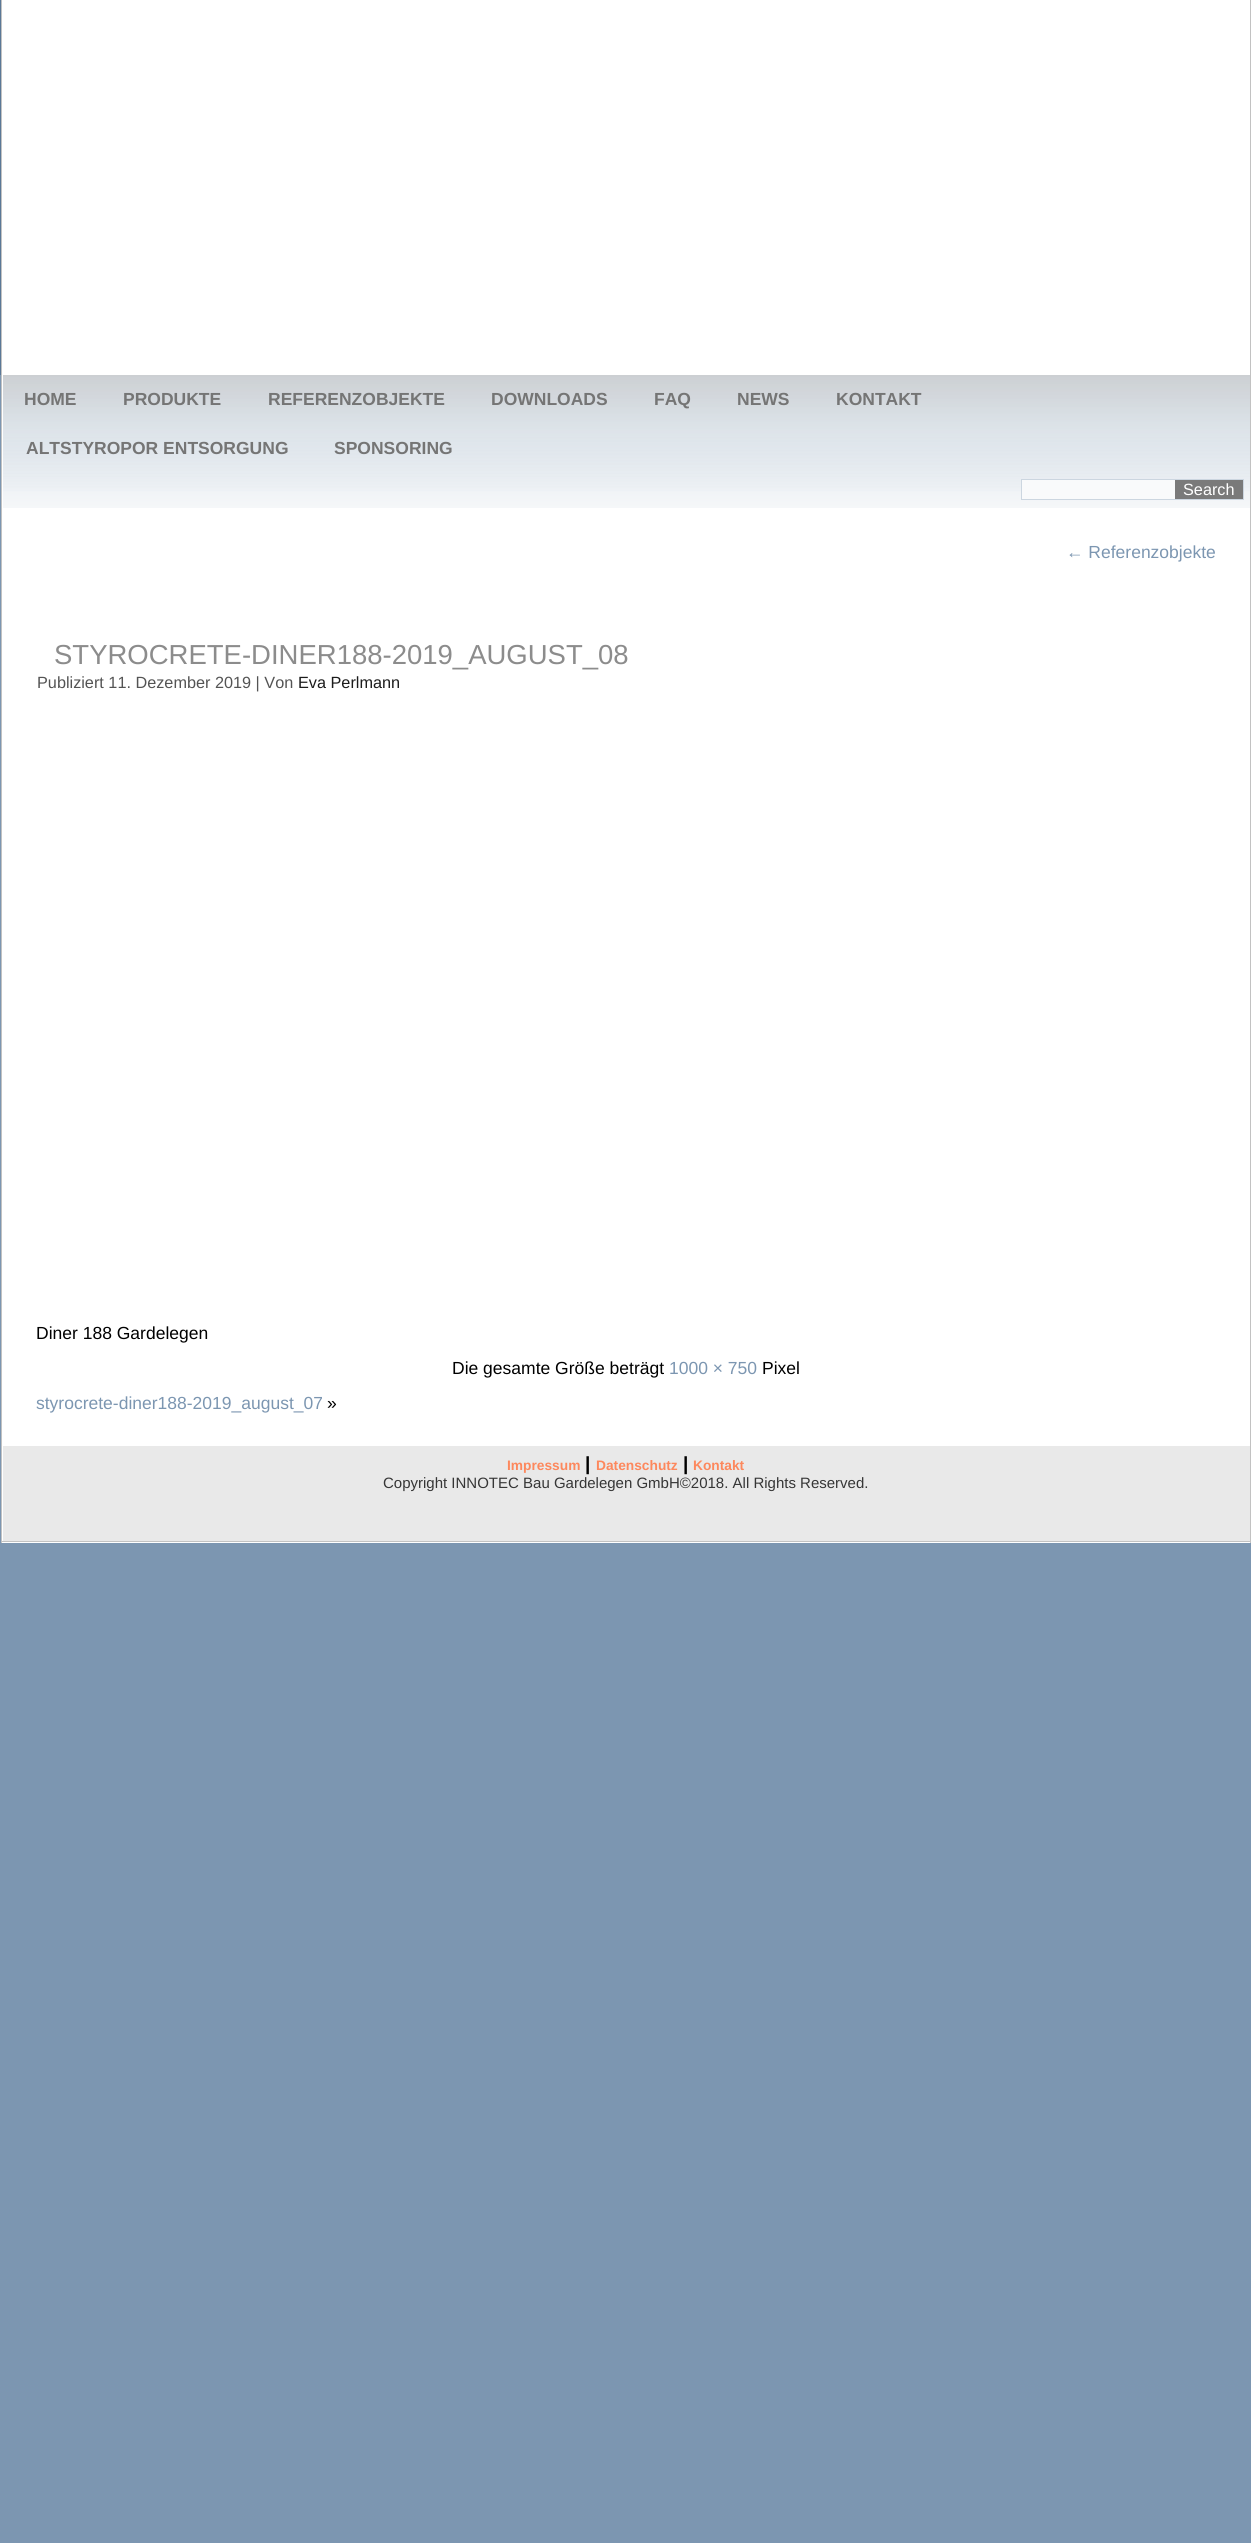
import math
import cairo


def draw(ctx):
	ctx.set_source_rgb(0.486, 0.588, 0.694)
	ctx.paint()
	ctx.set_source_rgb(0.357, 0.471, 0.592)
	ctx.rectangle(0, 0, 1, 375)
	ctx.fill()
	ctx.set_source_rgb(1, 1, 1)
	ctx.rectangle(2, 0, 1248, 1543)
	ctx.fill()
	ctx.set_source_rgb(0.761, 0.761, 0.761)
	ctx.rectangle(1250, 0, 1, 1543)
	ctx.rectangle(1, 1541, 1250, 1)
	ctx.rectangle(1, 0, 1, 1543)
	ctx.fill()
	gradient = cairo.LinearGradient(626, 375, 626, 508)
	gradient.add_color_stop_rgba(0, 0.839, 0.851, 0.863, 1)
	gradient.add_color_stop_rgba(0.43, 0.878, 0.902, 0.925, 1)
	gradient.add_color_stop_rgba(1, 0.961, 0.969, 0.976, 1)
	ctx.set_source(gradient)
	ctx.rectangle(3, 375, 1247, 133)
	ctx.fill()
	gradient = cairo.LinearGradient(626, 375, 626, 508)
	gradient.add_color_stop_rgba(0, 0.067, 0.09, 0.114, 0.05)
	gradient.add_color_stop_rgba(0.43, 0.361, 0.478, 0.6, 0.02)
	gradient.add_color_stop_rgba(1, 0.988, 0.988, 0.992, 0.11)
	ctx.set_source(gradient)
	ctx.rectangle(3, 375, 1247, 116)
	ctx.fill()
	ctx.select_font_face('Liberation Sans', cairo.FONT_SLANT_NORMAL, cairo.FONT_WEIGHT_BOLD)
	ctx.set_font_size(17.5)
	ctx.set_source_rgb(0.459, 0.459, 0.459)
	for x, y, s in [
		(24, 405, 'HOME'),
		(123, 405, 'PRODUKTE'),
		(268, 405, 'REFERENZOBJEKTE'),
		(491, 405, 'DOWNLOADS'),
		(654, 405, 'FAQ'),
		(737, 405, 'NEWS'),
		(836, 405, 'KONTAKT'),
		(26, 454, 'ALTSTYROPOR ENTSORGUNG'),
		(334, 454, 'SPONSORING'),
	]:
		ctx.move_to(x, y)
		ctx.show_text(s)
	ctx.set_source_rgb(0.976, 0.98, 0.984)
	ctx.rectangle(1022, 480, 153, 19)
	ctx.fill()
	ctx.rectangle(1021.5, 479.5, 222, 20)
	ctx.set_source_rgb(0.8, 0.839, 0.878)
	ctx.set_line_width(1)
	ctx.stroke()
	ctx.set_source_rgb(0.478, 0.478, 0.478)
	ctx.rectangle(1175, 480, 68, 19)
	ctx.fill()
	ctx.select_font_face('Liberation Sans')
	ctx.set_font_size(16.25)
	ctx.set_source_rgb(1, 1, 1)
	ctx.move_to(1183, 495)
	ctx.show_text('Search')
	ctx.set_font_size(17.5)
	ctx.set_source_rgb(0.486, 0.588, 0.694)
	ctx.move_to(1066, 558)
	ctx.show_text('← Referenzobjekte')
	ctx.set_font_size(27.5)
	ctx.set_source_rgb(0.549, 0.549, 0.549)
	ctx.move_to(54, 664)
	ctx.show_text('STYROCRETE-DINER188-2019_AUGUST_08')
	ctx.set_font_size(16.25)
	ctx.set_source_rgb(0.329, 0.329, 0.329)
	ctx.move_to(37, 688)
	ctx.show_text('Publiziert 11. Dezember 2019 | Von')
	ctx.set_source_rgb(0.11, 0.11, 0.11)
	ctx.move_to(298, 688)
	ctx.show_text('Eva Perlmann')
	ctx.set_font_size(17.5)
	ctx.set_source_rgb(0, 0, 0)
	ctx.move_to(36, 1339)
	ctx.show_text('Diner 188 Gardelegen')
	ctx.move_to(452, 1374)
	ctx.show_text('Die gesamte Größe beträgt')
	ctx.set_source_rgb(0.486, 0.588, 0.694)
	ctx.move_to(669, 1374)
	ctx.show_text('1000 × 750')
	ctx.set_source_rgb(0, 0, 0)
	ctx.move_to(762, 1374)
	ctx.show_text('Pixel')
	ctx.set_source_rgb(0.486, 0.588, 0.694)
	ctx.move_to(36, 1409)
	ctx.show_text('styrocrete-diner188-2019_august_07')
	ctx.set_source_rgb(0, 0, 0)
	ctx.move_to(327, 1409)
	ctx.show_text('»')
	ctx.set_source_rgb(0.914, 0.914, 0.914)
	ctx.rectangle(3, 1446, 1247, 95)
	ctx.fill()
	ctx.select_font_face('Liberation Sans', cairo.FONT_SLANT_NORMAL, cairo.FONT_WEIGHT_BOLD)
	ctx.set_font_size(13.75)
	ctx.set_source_rgb(0.992, 0.533, 0.365)
	ctx.move_to(507, 1470)
	ctx.show_text('Impressum')
	ctx.set_font_size(19)
	ctx.set_source_rgb(0, 0, 0)
	ctx.move_to(585, 1470)
	ctx.show_text('|')
	ctx.set_font_size(13.75)
	ctx.set_source_rgb(0.992, 0.533, 0.365)
	ctx.move_to(596, 1470)
	ctx.show_text('Datenschutz')
	ctx.set_font_size(19)
	ctx.set_source_rgb(0, 0, 0)
	ctx.move_to(683, 1470)
	ctx.show_text('|')
	ctx.set_font_size(13.75)
	ctx.set_source_rgb(0.992, 0.533, 0.365)
	ctx.move_to(693, 1470)
	ctx.show_text('Kontakt')
	ctx.select_font_face('Liberation Sans')
	ctx.set_font_size(15)
	ctx.set_source_rgb(0.212, 0.212, 0.212)
	ctx.move_to(383, 1488)
	ctx.show_text('Copyright INNOTEC Bau Gardelegen GmbH©2018. All Rights Reserved.')


surface = cairo.ImageSurface(cairo.FORMAT_RGB24, 1251, 2543)
ctx = cairo.Context(surface)
options = cairo.FontOptions()
options.set_hint_metrics(cairo.HINT_METRICS_OFF)
options.set_hint_style(cairo.HINT_STYLE_NONE)
ctx.set_font_options(options)
ctx.set_miter_limit(4)
draw(ctx)
surface.write_to_png('image.png')
